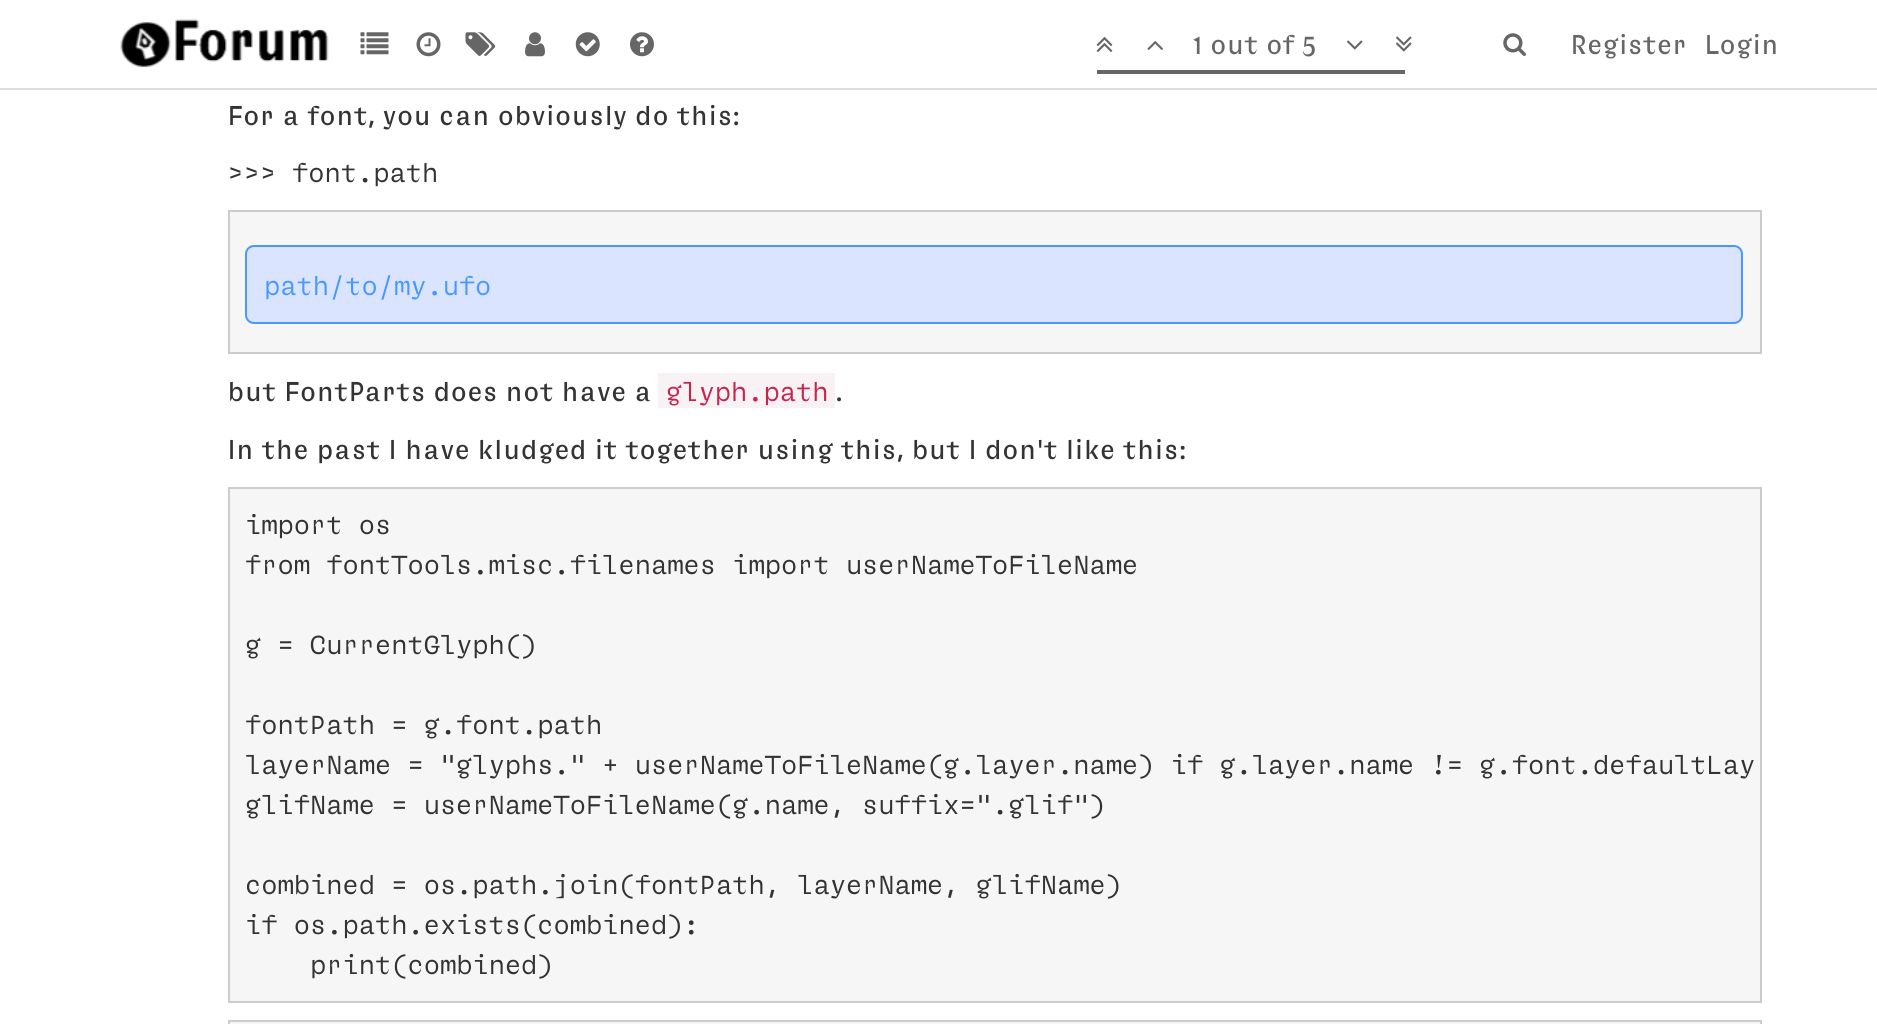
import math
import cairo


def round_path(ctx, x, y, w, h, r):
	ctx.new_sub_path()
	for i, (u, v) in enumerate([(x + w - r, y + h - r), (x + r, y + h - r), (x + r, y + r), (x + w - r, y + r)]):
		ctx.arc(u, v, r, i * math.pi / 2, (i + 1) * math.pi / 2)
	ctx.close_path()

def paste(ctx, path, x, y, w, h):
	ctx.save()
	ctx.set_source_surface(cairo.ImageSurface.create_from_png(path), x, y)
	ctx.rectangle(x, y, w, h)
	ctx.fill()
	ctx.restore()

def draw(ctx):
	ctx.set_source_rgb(1, 1, 1)
	ctx.paint()
	ctx.set_source_rgb(0.867, 0.867, 0.867)
	ctx.rectangle(0, 88, 1877, 2)
	ctx.fill()
	paste(ctx, 'media/1.png', 120, 19, 209, 49)
	paste(ctx, 'media/2.png', 360, 32, 29, 23)
	paste(ctx, 'media/3.png', 416, 32, 25, 25)
	paste(ctx, 'media/4.png', 465, 32, 31, 24)
	paste(ctx, 'media/5.png', 525, 32, 20, 25)
	paste(ctx, 'media/6.png', 575, 32, 25, 25)
	paste(ctx, 'media/7.png', 630, 32, 24, 25)
	paste(ctx, 'media/8.png', 1096, 37, 17, 15)
	paste(ctx, 'media/9.png', 1147, 41, 16, 9)
	ctx.select_font_face('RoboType')
	ctx.set_font_size(28)
	ctx.set_source_rgb(0.4, 0.4, 0.4)
	ctx.move_to(1192, 54)
	ctx.show_text('1 out of 5')
	paste(ctx, 'media/10.png', 1347, 40, 16, 10)
	paste(ctx, 'media/11.png', 1396, 36, 16, 16)
	ctx.rectangle(1097, 70, 308, 4)
	ctx.fill()
	paste(ctx, 'media/12.png', 1503, 33, 23, 23)
	ctx.move_to(1570, 54)
	ctx.show_text('Register')
	ctx.move_to(1704, 54)
	ctx.show_text('Login')
	ctx.set_source_rgb(0.2, 0.2, 0.2)
	ctx.move_to(227, 125)
	ctx.show_text('For a font, you can obviously do this:')
	ctx.select_font_face('RoboType Light')
	ctx.move_to(227, 182)
	ctx.show_text('>>> font.path')
	ctx.set_source_rgb(0.961, 0.961, 0.961)
	ctx.rectangle(229, 211, 1532, 142)
	ctx.fill_preserve()
	ctx.set_source_rgb(0.8, 0.8, 0.8)
	ctx.stroke()
	ctx.set_source_rgb(0.859, 0.894, 1)
	round_path(ctx, 246, 246, 1496, 77, 8)
	ctx.fill_preserve()
	ctx.set_source_rgb(0.286, 0.596, 1)
	ctx.stroke()
	ctx.move_to(264, 295)
	ctx.show_text('path/to/my.ufo')
	ctx.select_font_face('RoboType')
	ctx.set_source_rgb(0.2, 0.2, 0.2)
	ctx.move_to(227, 401)
	ctx.show_text('but FontParts does not have a')
	ctx.set_source_rgb(0.976, 0.949, 0.957)
	ctx.rectangle(658, 373, 177, 35)
	ctx.fill()
	ctx.select_font_face('RoboType Light')
	ctx.set_source_rgb(0.78, 0.145, 0.306)
	ctx.move_to(666, 401)
	ctx.show_text('glyph.path')
	ctx.select_font_face('RoboType')
	ctx.set_source_rgb(0.2, 0.2, 0.2)
	ctx.move_to(835, 401)
	ctx.show_text('.')
	ctx.move_to(227, 459)
	ctx.show_text('In the past I have kludged it together using this, but I don\'t like this:')
	ctx.set_source_rgb(0.961, 0.961, 0.961)
	ctx.rectangle(229, 488, 1532, 514)
	ctx.fill_preserve()
	ctx.set_source_rgb(0.8, 0.8, 0.8)
	ctx.stroke()
	ctx.select_font_face('RoboType Light')
	ctx.set_source_rgb(0.2, 0.2, 0.2)
	for x, y, s in [
		(245, 534, 'import os'),
		(245, 574, 'from fontTools.misc.filenames import userNameToFileName'),
		(245, 654, 'g = CurrentGlyph()'),
		(245, 734, 'fontPath = g.font.path'),
		(245, 774, 'layerName = "glyphs." + userNameToFileName(g.layer.name) if g.layer.name != g.font.defaultLay'),
		(245, 814, 'glifName = userNameToFileName(g.name, suffix=".glif")'),
		(245, 894, 'combined = os.path.join(fontPath, layerName, glifName)'),
		(245, 934, 'if os.path.exists(combined):'),
		(310, 974, 'print(combined)'),
	]:
		ctx.move_to(x, y)
		ctx.show_text(s)
	ctx.set_source_rgb(0.961, 0.961, 0.961)
	ctx.rectangle(229, 1021, 1532, 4)
	ctx.fill_preserve()
	ctx.set_source_rgb(0.8, 0.8, 0.8)
	ctx.stroke()


surface = cairo.ImageSurface(cairo.FORMAT_RGB24, 1877, 1024)
ctx = cairo.Context(surface)
options = cairo.FontOptions()
options.set_hint_metrics(cairo.HINT_METRICS_OFF)
options.set_hint_style(cairo.HINT_STYLE_NONE)
ctx.set_font_options(options)
ctx.set_miter_limit(4)
draw(ctx)
surface.write_to_png('image.png')
